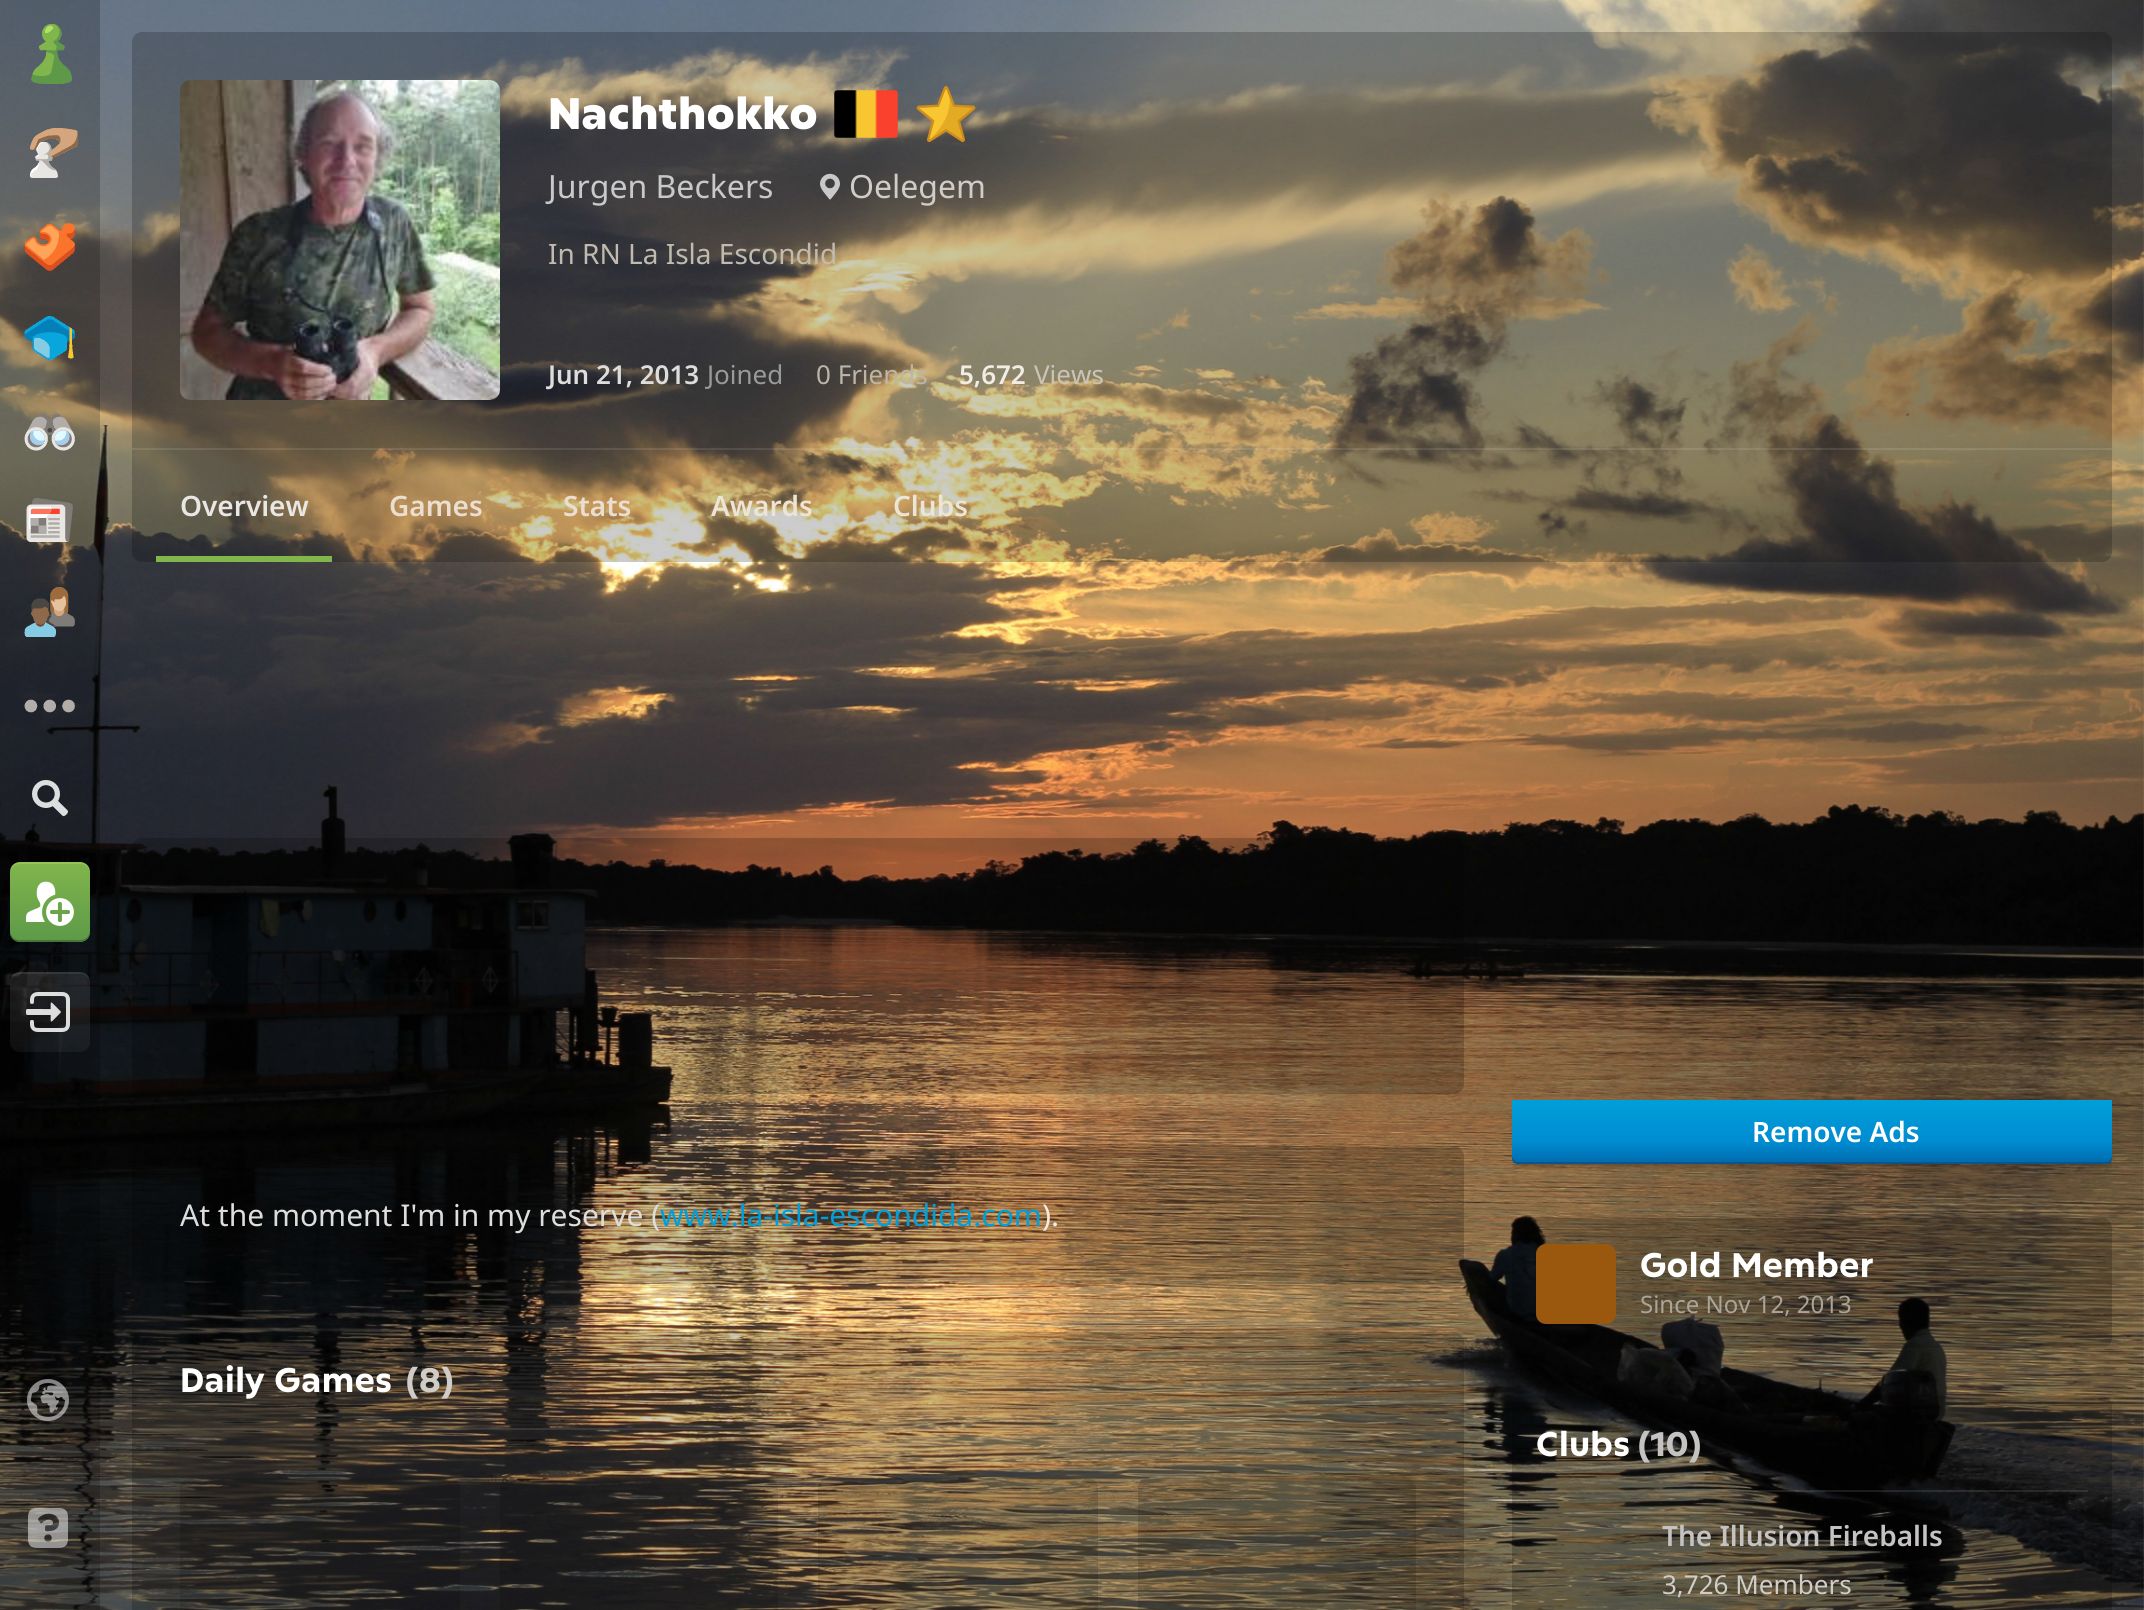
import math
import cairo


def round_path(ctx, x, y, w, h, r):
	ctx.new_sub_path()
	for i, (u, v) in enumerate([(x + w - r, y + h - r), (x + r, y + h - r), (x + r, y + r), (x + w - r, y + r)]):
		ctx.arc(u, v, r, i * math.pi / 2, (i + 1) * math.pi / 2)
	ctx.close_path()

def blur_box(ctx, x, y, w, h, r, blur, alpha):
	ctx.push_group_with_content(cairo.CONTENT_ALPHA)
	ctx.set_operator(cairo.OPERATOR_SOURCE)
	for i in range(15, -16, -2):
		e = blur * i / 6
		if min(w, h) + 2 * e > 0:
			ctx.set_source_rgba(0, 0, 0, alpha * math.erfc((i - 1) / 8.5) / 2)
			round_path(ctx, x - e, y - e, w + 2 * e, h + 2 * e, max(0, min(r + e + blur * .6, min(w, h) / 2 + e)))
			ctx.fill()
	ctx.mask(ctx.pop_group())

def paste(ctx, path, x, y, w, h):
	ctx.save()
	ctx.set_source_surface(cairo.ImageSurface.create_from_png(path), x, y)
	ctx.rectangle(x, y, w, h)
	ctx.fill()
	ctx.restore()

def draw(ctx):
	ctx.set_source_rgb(1, 1, 1)
	ctx.paint()
	paste(ctx, 'media/1.png', 0, 0, 2144, 1610)
	ctx.set_source_rgba(0, 0, 0, 0.2)
	ctx.rectangle(0, 0, 100, 1610)
	ctx.fill()
	paste(ctx, 'media/2.png', 31, 24, 41, 60)
	paste(ctx, 'media/3.png', 30, 128, 48, 50)
	paste(ctx, 'media/4.png', 24, 223, 51, 48)
	paste(ctx, 'media/5.png', 24, 316, 51, 44)
	paste(ctx, 'media/6.png', 24, 413, 51, 38)
	paste(ctx, 'media/7.png', 26, 498, 47, 44)
	paste(ctx, 'media/8.png', 24, 587, 51, 50)
	paste(ctx, 'media/9.png', 24, 699, 51, 14)
	paste(ctx, 'media/10.png', 32, 780, 36, 37)
	gradient = cairo.LinearGradient(50, 862, 50, 942)
	gradient.add_color_stop_rgba(0, 0.506, 0.714, 0.298, 1)
	gradient.add_color_stop_rgba(1, 0.365, 0.6, 0.282, 1)
	ctx.set_source(gradient)
	round_path(ctx, 10, 862, 80, 80, 10)
	ctx.fill()
	ctx.set_source_rgb(0.271, 0.459, 0.235)
	ctx.new_path()
	ctx.move_to(10, 930)
	ctx.curve_to(10, 943, 19, 942, 30, 942)
	ctx.line_to(70, 942)
	ctx.curve_to(81, 942, 90, 943, 90, 930)
	ctx.curve_to(90, 936, 86, 940, 80, 940)
	ctx.line_to(20, 940)
	ctx.curve_to(14, 940, 10, 936, 10, 930)
	ctx.close_path()
	ctx.fill()
	ctx.set_source_rgba(0.698, 0.878, 0.408, 0.4)
	ctx.new_path()
	ctx.move_to(20, 864)
	ctx.line_to(80, 864)
	ctx.curve_to(86, 864, 90, 868, 90, 874)
	ctx.curve_to(90, 861, 81, 862, 70, 862)
	ctx.line_to(30, 862)
	ctx.curve_to(19, 862, 10, 861, 10, 874)
	ctx.curve_to(10, 868, 14, 864, 20, 864)
	ctx.close_path()
	ctx.fill()
	paste(ctx, 'media/11.png', 26, 881, 48, 45)
	gradient = cairo.LinearGradient(50, 972, 50, 1052)
	gradient.add_color_stop_rgba(0, 1, 1, 1, 0.1)
	gradient.add_color_stop_rgba(1, 1, 1, 1, 0.05)
	ctx.set_source(gradient)
	round_path(ctx, 10, 972, 80, 80, 10)
	ctx.fill()
	ctx.set_source_rgba(1, 1, 1, 0.08)
	ctx.new_path()
	ctx.move_to(20, 974)
	ctx.line_to(80, 974)
	ctx.curve_to(86, 974, 90, 978, 90, 984)
	ctx.curve_to(90, 971, 81, 972, 70, 972)
	ctx.line_to(30, 972)
	ctx.curve_to(19, 972, 10, 971, 10, 984)
	ctx.curve_to(10, 978, 14, 974, 20, 974)
	ctx.close_path()
	ctx.fill()
	paste(ctx, 'media/12.png', 26, 992, 44, 40)
	paste(ctx, 'media/13.png', 27, 1379, 42, 42)
	paste(ctx, 'media/14.png', 28, 1508, 40, 40)
	ctx.set_source_rgba(0, 0, 0, 0.2)
	ctx.new_path()
	ctx.move_to(142, 32)
	ctx.line_to(2102, 32)
	ctx.curve_to(2107.5, 32, 2112, 36.5, 2112, 42)
	ctx.line_to(2112, 448)
	ctx.line_to(132, 448)
	ctx.line_to(132, 42)
	ctx.curve_to(132, 36.5, 136.5, 32, 142, 32)
	ctx.close_path()
	ctx.fill()
	paste(ctx, 'media/15.png', 180, 80, 320, 320)
	ctx.select_font_face('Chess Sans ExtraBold')
	ctx.set_font_size(44)
	ctx.set_source_rgb(1, 1, 1)
	ctx.move_to(548, 129)
	ctx.show_text('Nachthokko')
	paste(ctx, 'media/16.png', 834, 90, 64, 48)
	paste(ctx, 'media/17.png', 916, 86, 60, 56)
	ctx.select_font_face('Noto Sans')
	ctx.set_font_size(32)
	ctx.set_source_rgb(0.788, 0.788, 0.788)
	ctx.move_to(548, 198)
	ctx.show_text('Jurgen Beckers')
	paste(ctx, 'media/18.png', 820, 173, 20, 27)
	ctx.set_source_rgb(0.816, 0.804, 0.784)
	ctx.move_to(849, 198)
	ctx.show_text('Oelegem')
	ctx.set_font_size(28)
	ctx.set_source_rgb(0.757, 0.733, 0.686)
	ctx.move_to(548, 264)
	ctx.show_text('In RN La Isla Escondid')
	ctx.select_font_face('Noto Sans SemiBold')
	ctx.set_font_size(26)
	ctx.set_source_rgb(0.867, 0.867, 0.863)
	ctx.move_to(548, 384)
	ctx.show_text('Jun 21, 2013')
	ctx.select_font_face('Noto Sans')
	ctx.set_source_rgb(0.608, 0.604, 0.608)
	ctx.move_to(707, 384)
	ctx.show_text('Joined')
	ctx.set_source_rgb(0.737, 0.714, 0.663)
	ctx.move_to(816, 384)
	ctx.show_text('0 Friends')
	ctx.select_font_face('Noto Sans SemiBold')
	ctx.set_source_rgb(0.949, 0.922, 0.894)
	ctx.move_to(959, 384)
	ctx.show_text('5,672')
	ctx.select_font_face('Noto Sans')
	ctx.set_source_rgb(0.788, 0.769, 0.706)
	ctx.move_to(1034, 384)
	ctx.show_text('Views')
	ctx.set_source_rgba(0, 0, 0, 0.2)
	ctx.new_path()
	ctx.move_to(132, 448)
	ctx.line_to(2112, 448)
	ctx.line_to(2112, 552)
	ctx.curve_to(2112, 557.5, 2107.5, 562, 2102, 562)
	ctx.line_to(142, 562)
	ctx.curve_to(136.5, 562, 132, 557.5, 132, 552)
	ctx.close_path()
	ctx.fill()
	ctx.set_source_rgba(1, 1, 1, 0.1)
	ctx.rectangle(132, 448, 1980, 2)
	ctx.fill()
	ctx.set_source_rgb(0.506, 0.714, 0.298)
	ctx.rectangle(156, 556, 176, 6)
	ctx.fill()
	ctx.select_font_face('Noto Sans SemiBold')
	ctx.set_font_size(28)
	ctx.set_source_rgb(0.91, 0.906, 0.89)
	ctx.move_to(180, 516)
	ctx.show_text('Overview')
	ctx.set_source_rgb(0.914, 0.871, 0.816)
	ctx.move_to(389, 516)
	ctx.show_text('Games')
	ctx.move_to(563, 516)
	ctx.show_text('Stats')
	ctx.set_source_rgb(0.918, 0.894, 0.843)
	ctx.move_to(711, 516)
	ctx.show_text('Awards')
	ctx.move_to(893, 516)
	ctx.show_text('Clubs')
	ctx.set_source_rgba(0, 0, 0, 0.2)
	round_path(ctx, 132, 838, 1332, 256, 10)
	ctx.fill()
	round_path(ctx, 132, 1146, 1332, 138, 10)
	ctx.fill()
	ctx.select_font_face('Noto Sans')
	ctx.set_font_size(30)
	ctx.set_source_rgb(0.867, 0.867, 0.863)
	ctx.move_to(180, 1226)
	ctx.show_text('At the moment I\'m in my reserve (')
	ctx.set_source_rgb(0, 0.624, 0.851)
	ctx.move_to(660, 1226)
	ctx.show_text('www.la-isla-escondida.com')
	ctx.set_source_rgb(0.949, 0.922, 0.894)
	ctx.move_to(1042, 1226)
	ctx.show_text(').')
	ctx.set_source_rgba(0, 0, 0, 0.2)
	round_path(ctx, 132, 1332, 1332, 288, 10)
	ctx.fill()
	ctx.select_font_face('Chess Sans', cairo.FONT_SLANT_NORMAL, cairo.FONT_WEIGHT_BOLD)
	ctx.set_font_size(34)
	ctx.set_source_rgb(1, 1, 1)
	ctx.move_to(180, 1392)
	ctx.show_text('Daily Games')
	ctx.set_source_rgb(0.816, 0.804, 0.784)
	ctx.move_to(406, 1392)
	ctx.show_text('(8)')
	ctx.set_source_rgba(1, 1, 1, 0.1)
	ctx.rectangle(132, 1428, 1332, 2)
	ctx.fill()
	ctx.set_source_rgba(0, 0, 0, 0.14)
	round_path(ctx, 180, 1478, 280, 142, 10)
	ctx.fill()
	round_path(ctx, 500, 1478, 278, 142, 10)
	ctx.fill()
	round_path(ctx, 818, 1478, 280, 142, 10)
	ctx.fill()
	round_path(ctx, 1138, 1478, 278, 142, 10)
	ctx.fill()
	ctx.save()
	ctx.rectangle(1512, 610, 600, 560)
	ctx.clip()
	ctx.set_source_rgb(0, 0, 0)
	blur_box(ctx, 1512, 1104, 600, 64, 6, 4, 0.1)
	blur_box(ctx, 1512, 1102, 600, 64, 6, 2, 0.14)
	ctx.restore()
	gradient = cairo.LinearGradient(1812, 1100, 1812, 1164)
	gradient.add_color_stop_rgba(0, 0, 0.624, 0.851, 1)
	gradient.add_color_stop_rgba(0.65, 0, 0.549, 0.82, 1)
	gradient.add_color_stop_rgba(1, 0, 0.412, 0.671, 1)
	ctx.set_source(gradient)
	ctx.new_path()
	ctx.move_to(1512, 1100)
	ctx.line_to(2112, 1100)
	ctx.line_to(2112, 1158)
	ctx.curve_to(2112, 1161.5, 2109.5, 1164, 2106, 1164)
	ctx.line_to(1518, 1164)
	ctx.curve_to(1514.5, 1164, 1512, 1161.5, 1512, 1158)
	ctx.close_path()
	ctx.fill()
	ctx.set_source_rgb(0.043, 0.329, 0.549)
	ctx.new_path()
	ctx.move_to(1512, 1156)
	ctx.line_to(1512, 1158)
	ctx.curve_to(1512, 1161, 1515, 1164, 1518, 1164)
	ctx.line_to(2106, 1164)
	ctx.curve_to(2109, 1164, 2112, 1161, 2112, 1158)
	ctx.line_to(2112, 1156)
	ctx.curve_to(2112, 1159, 2109, 1162, 2106, 1162)
	ctx.line_to(1518, 1162)
	ctx.curve_to(1515, 1162, 1512, 1159, 1512, 1156)
	ctx.close_path()
	ctx.fill()
	ctx.select_font_face('Noto Sans SemiBold')
	ctx.set_font_size(28)
	ctx.set_source_rgb(1, 1, 1)
	ctx.move_to(1752, 1142)
	ctx.show_text('Remove Ads')
	ctx.set_source_rgba(0, 0, 0, 0.2)
	round_path(ctx, 1512, 1218, 600, 130, 10)
	ctx.fill()
	ctx.set_source_rgb(0.6, 0.345, 0.055)
	round_path(ctx, 1536, 1244, 80, 80, 10)
	ctx.fill()
	ctx.select_font_face('Chess Sans', cairo.FONT_SLANT_NORMAL, cairo.FONT_WEIGHT_BOLD)
	ctx.set_font_size(34)
	ctx.set_source_rgb(1, 1, 1)
	ctx.move_to(1640, 1277)
	ctx.show_text('Gold Member')
	ctx.select_font_face('Noto Sans')
	ctx.set_font_size(24)
	ctx.set_source_rgb(0.671, 0.643, 0.604)
	ctx.move_to(1640, 1313)
	ctx.show_text('Since Nov 12, 2013')
	ctx.set_source_rgba(0, 0, 0, 0.2)
	round_path(ctx, 1512, 1396, 600, 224, 10)
	ctx.fill()
	ctx.select_font_face('Chess Sans', cairo.FONT_SLANT_NORMAL, cairo.FONT_WEIGHT_BOLD)
	ctx.set_font_size(34)
	ctx.set_source_rgb(1, 1, 1)
	ctx.move_to(1536, 1456)
	ctx.show_text('Clubs')
	ctx.set_source_rgb(0.769, 0.765, 0.757)
	ctx.move_to(1638, 1456)
	ctx.show_text('(10)')
	ctx.set_source_rgba(1, 1, 1, 0.1)
	ctx.rectangle(1536, 1490, 552, 2)
	ctx.fill()
	ctx.select_font_face('Noto Sans SemiBold')
	ctx.set_font_size(28)
	ctx.set_source_rgb(0.769, 0.765, 0.757)
	ctx.move_to(1662, 1546)
	ctx.show_text('The Illusion Fireballs')
	ctx.select_font_face('Noto Sans')
	ctx.set_font_size(26)
	ctx.set_source_rgb(0.816, 0.804, 0.784)
	ctx.move_to(1662, 1594)
	ctx.show_text('3,726 Members')


surface = cairo.ImageSurface(cairo.FORMAT_RGB24, 2144, 1610)
ctx = cairo.Context(surface)
options = cairo.FontOptions()
options.set_hint_metrics(cairo.HINT_METRICS_OFF)
options.set_hint_style(cairo.HINT_STYLE_NONE)
ctx.set_font_options(options)
ctx.set_miter_limit(4)
draw(ctx)
surface.write_to_png('image.png')
